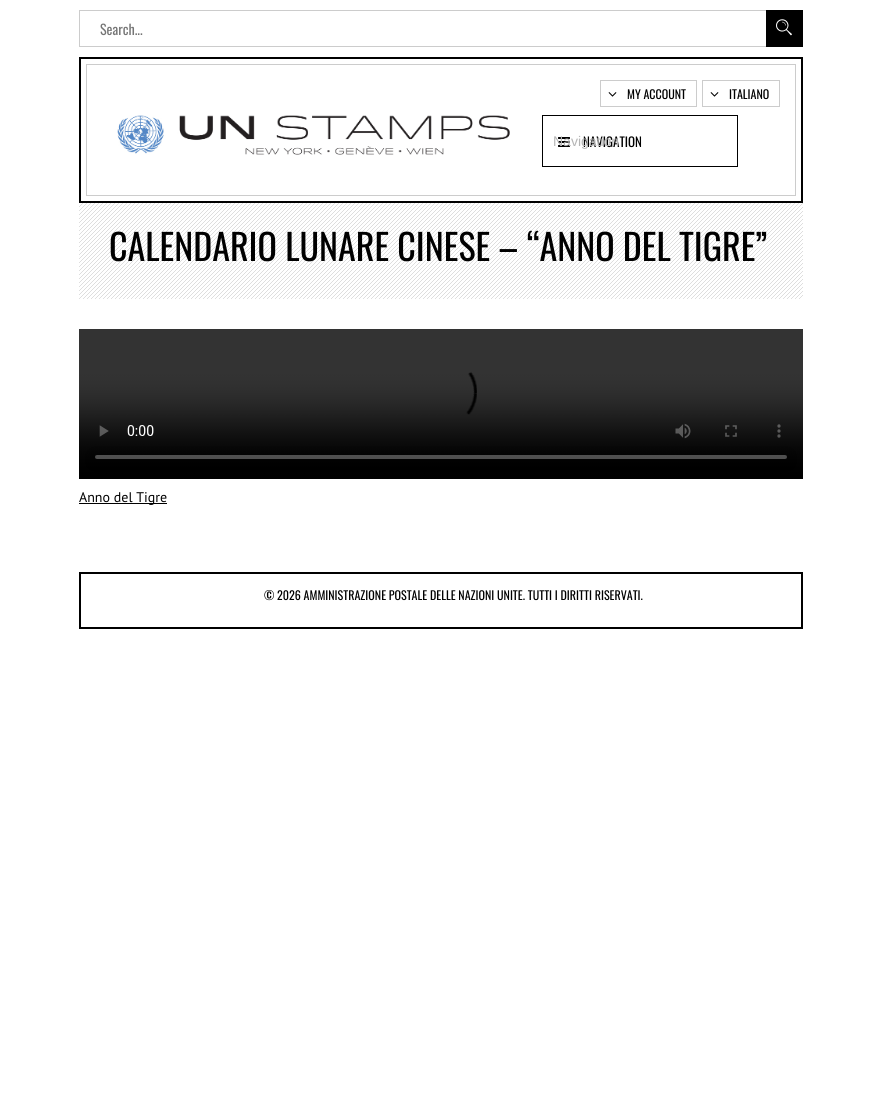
import math
import cairo


def paste(ctx, path, x, y, w, h):
	ctx.save()
	ctx.set_source_surface(cairo.ImageSurface.create_from_png(path), x, y)
	ctx.rectangle(x, y, w, h)
	ctx.fill()
	ctx.restore()

def draw(ctx):
	ctx.set_source_rgb(1, 1, 1)
	ctx.paint()
	ctx.rectangle(79.5, 10.5, 723, 36)
	ctx.set_source_rgb(0.8, 0.8, 0.8)
	ctx.set_line_width(1)
	ctx.stroke()
	ctx.select_font_face('Oswald')
	ctx.set_font_size(14)
	ctx.set_source_rgb(0.459, 0.459, 0.459)
	ctx.move_to(100, 35)
	ctx.show_text('Search...')
	ctx.set_source_rgb(0, 0, 0)
	ctx.rectangle(766, 10, 37, 37)
	ctx.fill()
	paste(ctx, 'media/1.png', 776, 19, 16, 17)
	ctx.rectangle(80, 58, 722, 144)
	ctx.set_line_width(2)
	ctx.stroke()
	ctx.rectangle(86.5, 64.5, 709, 131)
	ctx.set_source_rgb(0.8, 0.8, 0.8)
	ctx.set_line_width(1)
	ctx.stroke()
	ctx.rectangle(600.5, 80.5, 96, 26)
	ctx.stroke()
	paste(ctx, 'media/2.png', 608, 92, 9, 5)
	ctx.set_font_size(12)
	ctx.set_source_rgb(0, 0, 0)
	ctx.move_to(627, 99)
	ctx.show_text('MY ACCOUNT')
	ctx.rectangle(702.5, 80.5, 77, 26)
	ctx.set_source_rgb(0.8, 0.8, 0.8)
	ctx.stroke()
	paste(ctx, 'media/2.png', 710, 92, 9, 5)
	ctx.set_source_rgb(0, 0, 0)
	ctx.move_to(729, 99)
	ctx.show_text('ITALIANO')
	paste(ctx, 'media/3.png', 117, 115, 393, 40)
	ctx.rectangle(542.5, 115.5, 195, 51)
	ctx.stroke()
	paste(ctx, 'media/4.png', 558, 137, 12, 10)
	ctx.set_font_size(13)
	ctx.move_to(583, 147)
	ctx.show_text('NAVIGATION')
	ctx.select_font_face('Liberation Sans')
	ctx.set_font_size(14)
	ctx.set_source_rgb(0.71, 0.71, 0.71)
	ctx.move_to(553, 146)
	ctx.show_text('Navigation')
	paste(ctx, 'media/5.png', 79, 203, 724, 96)
	ctx.select_font_face('Oswald')
	ctx.set_font_size(36)
	ctx.set_source_rgb(0, 0, 0)
	ctx.move_to(109, 261)
	ctx.show_text('CALENDARIO LUNARE CINESE – “ANNO DEL TIGRE”')
	paste(ctx, 'media/6.png', 79, 329, 724, 150)
	ctx.rectangle(79, 503, 88, 1)
	ctx.fill()
	ctx.select_font_face('PT Sans')
	ctx.set_font_size(14)
	ctx.move_to(79, 502)
	ctx.show_text('Anno del Tigre')
	ctx.rectangle(80, 573, 722, 55)
	ctx.set_line_width(2)
	ctx.stroke()
	ctx.select_font_face('Oswald')
	ctx.set_font_size(12)
	ctx.move_to(264, 600)
	ctx.show_text('© 2026 AMMINISTRAZIONE POSTALE DELLE NAZIONI UNITE. TUTTI I DIRITTI RISERVATI.')


surface = cairo.ImageSurface(cairo.FORMAT_RGB24, 882, 1105)
ctx = cairo.Context(surface)
options = cairo.FontOptions()
options.set_hint_metrics(cairo.HINT_METRICS_OFF)
options.set_hint_style(cairo.HINT_STYLE_NONE)
ctx.set_font_options(options)
ctx.set_miter_limit(4)
draw(ctx)
surface.write_to_png('image.png')
